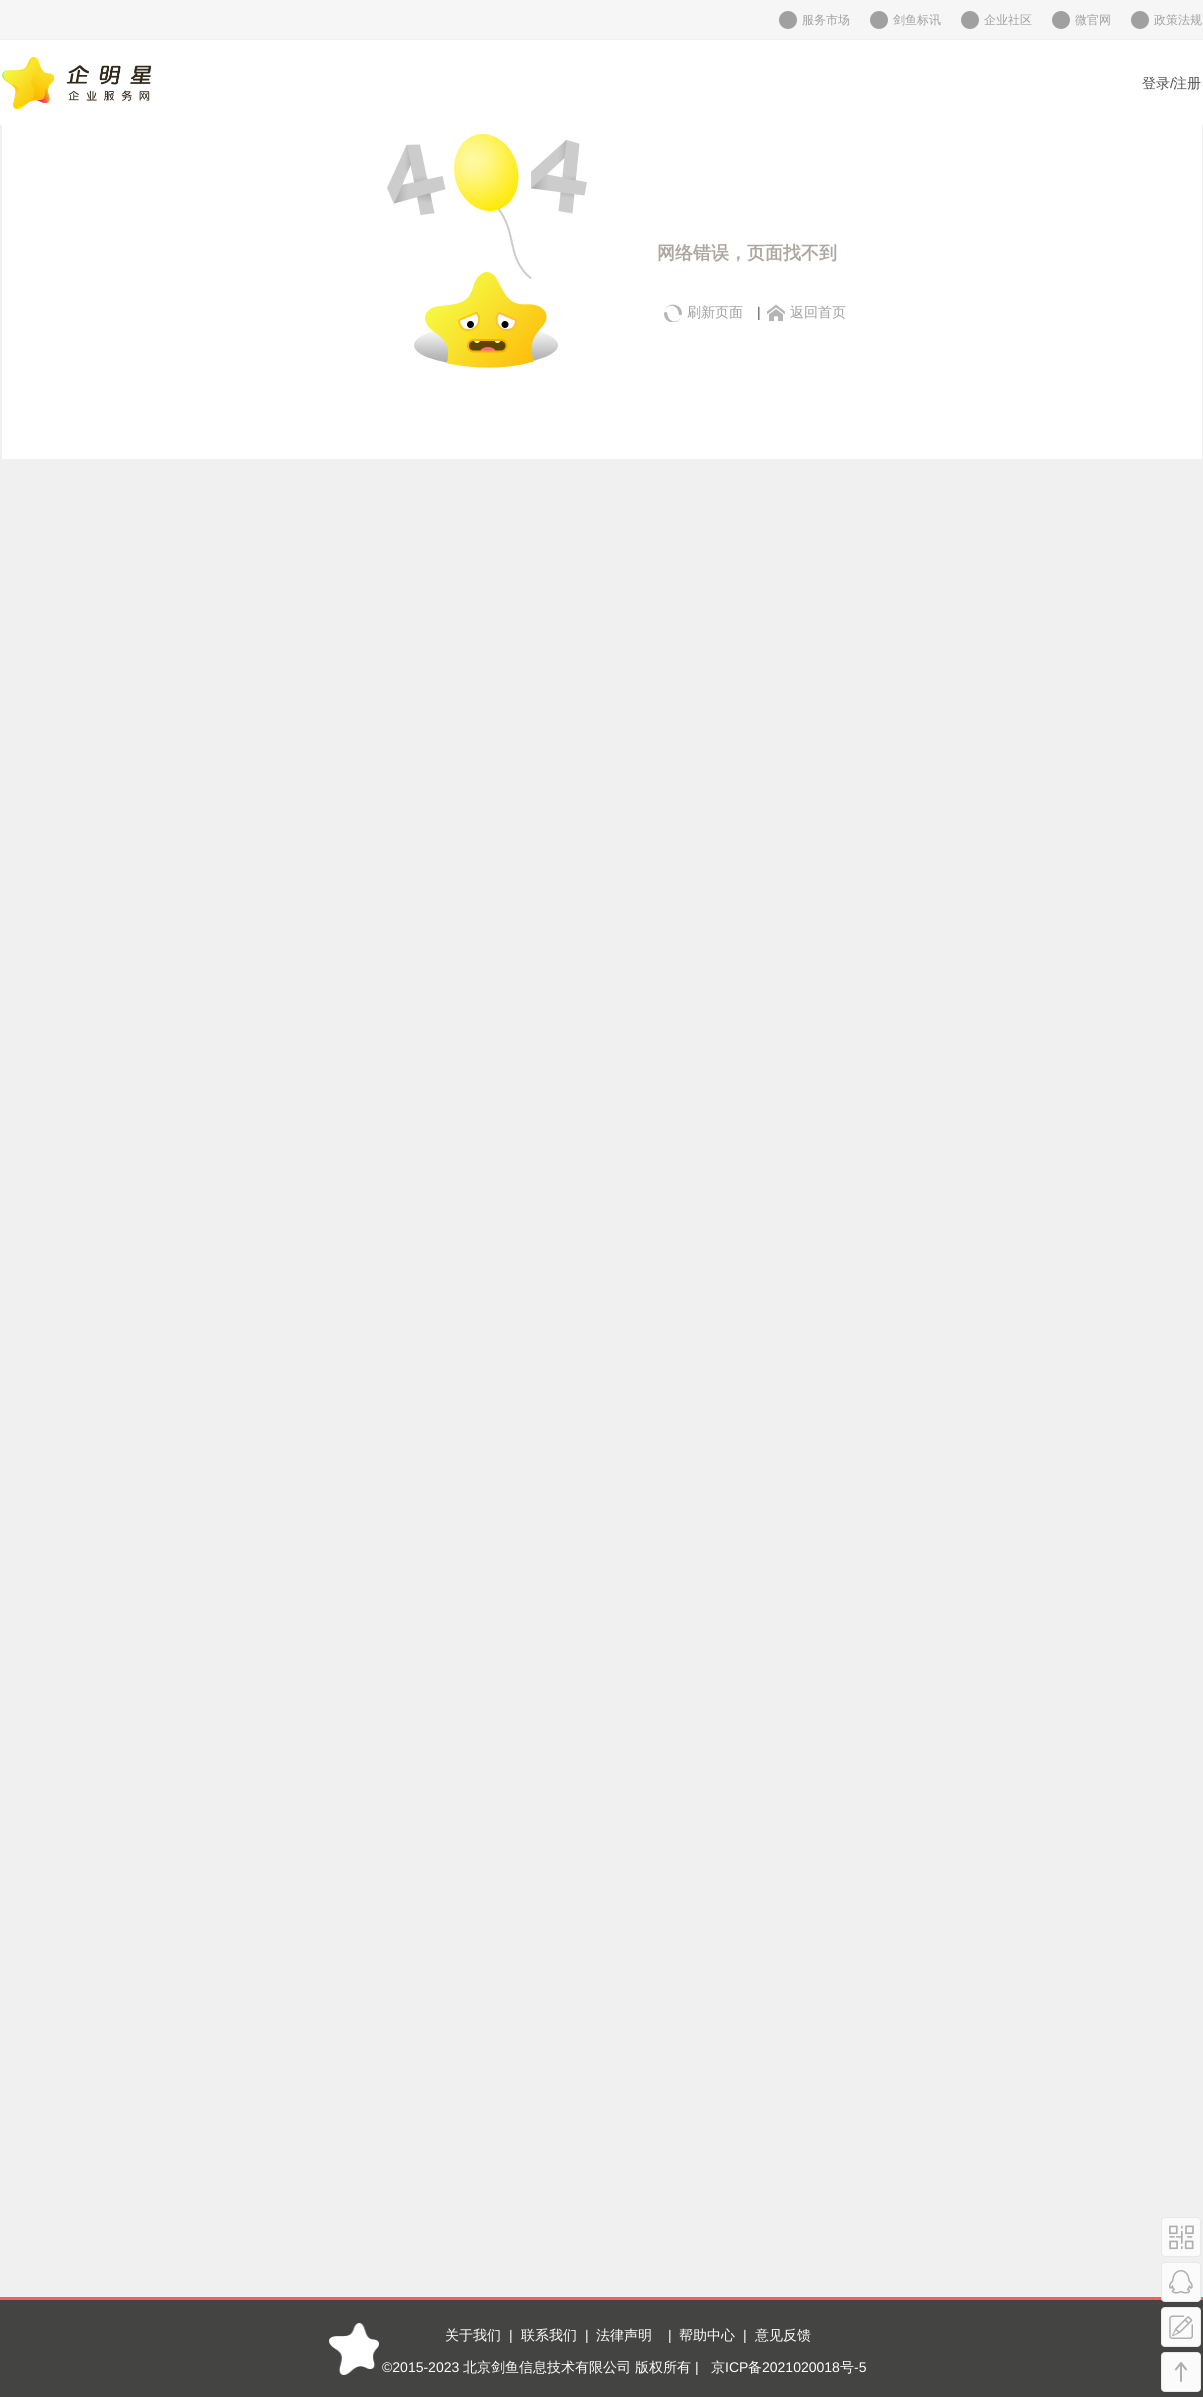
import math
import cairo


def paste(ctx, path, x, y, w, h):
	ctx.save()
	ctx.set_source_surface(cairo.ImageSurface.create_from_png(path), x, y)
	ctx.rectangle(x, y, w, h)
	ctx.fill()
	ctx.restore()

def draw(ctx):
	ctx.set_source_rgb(0.941, 0.941, 0.941)
	ctx.paint()
	ctx.set_source_rgb(0.961, 0.961, 0.961)
	ctx.rectangle(0, 0, 1203, 39)
	ctx.fill()
	ctx.set_source_rgb(0.627, 0.627, 0.627)
	ctx.arc(788, 20, 9, 0, 2 * math.pi)
	ctx.fill()
	ctx.select_font_face('WenQuanYi Zen Hei Medium')
	ctx.set_font_size(12)
	ctx.move_to(802, 24)
	ctx.show_text('服务市场')
	ctx.new_path()
	ctx.arc(879, 20, 9, 0, 2 * math.pi)
	ctx.fill()
	ctx.move_to(893, 24)
	ctx.show_text('剑鱼标讯')
	ctx.new_path()
	ctx.arc(970, 20, 9, 0, 2 * math.pi)
	ctx.fill()
	ctx.move_to(984, 24)
	ctx.show_text('企业社区')
	ctx.new_path()
	ctx.arc(1061, 20, 9, 0, 2 * math.pi)
	ctx.fill()
	ctx.move_to(1075, 24)
	ctx.show_text('微官网')
	ctx.new_path()
	ctx.arc(1140, 20, 9, 0, 2 * math.pi)
	ctx.fill()
	ctx.move_to(1154, 24)
	ctx.show_text('政策法规')
	ctx.set_source_rgb(1, 1, 1)
	ctx.rectangle(0, 40, 1203, 85)
	ctx.fill()
	paste(ctx, 'media/1.png', 2, 57, 149, 52)
	ctx.set_font_size(14)
	ctx.set_source_rgb(0.306, 0.314, 0.318)
	ctx.move_to(1142, 88)
	ctx.show_text('登录')
	ctx.select_font_face('Liberation Sans')
	ctx.move_to(1170, 88)
	ctx.show_text('/')
	ctx.select_font_face('WenQuanYi Zen Hei Medium')
	ctx.move_to(1173, 88)
	ctx.show_text('注册')
	ctx.set_source_rgb(1, 1, 1)
	ctx.rectangle(2, 125, 1200, 334)
	ctx.fill()
	paste(ctx, 'media/2.png', 387, 134, 200, 234)
	ctx.select_font_face('WenQuanYi Zen Hei', cairo.FONT_SLANT_NORMAL, cairo.FONT_WEIGHT_BOLD)
	ctx.set_font_size(18)
	ctx.set_source_rgb(0.682, 0.655, 0.624)
	ctx.move_to(657, 259)
	ctx.show_text('网络错误，页面找不到')
	paste(ctx, 'media/3.png', 664, 304, 18, 18)
	ctx.select_font_face('WenQuanYi Zen Hei Medium')
	ctx.set_font_size(14)
	ctx.set_source_rgb(0.627, 0.627, 0.627)
	ctx.move_to(687, 317)
	ctx.show_text('刷新页面')
	ctx.select_font_face('Liberation Sans')
	ctx.set_source_rgb(0.306, 0.314, 0.318)
	ctx.move_to(757, 317)
	ctx.show_text('|')
	paste(ctx, 'media/4.png', 767, 304, 18, 17)
	ctx.select_font_face('WenQuanYi Zen Hei Medium')
	ctx.set_source_rgb(0.627, 0.627, 0.627)
	ctx.move_to(790, 317)
	ctx.show_text('返回首页')
	paste(ctx, 'media/5.png', 0, 2297, 1203, 100)
	paste(ctx, 'media/6.png', 329, 2323, 50, 52)
	ctx.set_source_rgb(1, 1, 1)
	ctx.move_to(445, 2340)
	ctx.show_text('关于我们')
	ctx.select_font_face('Liberation Sans')
	ctx.move_to(509, 2340)
	ctx.show_text('|')
	ctx.select_font_face('WenQuanYi Zen Hei Medium')
	ctx.move_to(521, 2340)
	ctx.show_text('联系我们')
	ctx.select_font_face('Liberation Sans')
	ctx.move_to(585, 2340)
	ctx.show_text('|')
	ctx.select_font_face('WenQuanYi Zen Hei Medium')
	ctx.move_to(596, 2340)
	ctx.show_text('法律声明')
	ctx.select_font_face('Liberation Sans')
	ctx.move_to(668, 2340)
	ctx.show_text('|')
	ctx.select_font_face('WenQuanYi Zen Hei Medium')
	ctx.move_to(679, 2340)
	ctx.show_text('帮助中心')
	ctx.select_font_face('Liberation Sans')
	ctx.move_to(743, 2340)
	ctx.show_text('|')
	ctx.select_font_face('WenQuanYi Zen Hei Medium')
	ctx.move_to(755, 2340)
	ctx.show_text('意见反馈')
	ctx.select_font_face('Liberation Sans')
	ctx.move_to(382, 2372)
	ctx.show_text('©2015-2023')
	ctx.select_font_face('WenQuanYi Zen Hei Medium')
	ctx.move_to(463, 2372)
	ctx.show_text('北京剑鱼信息技术有限公司')
	ctx.move_to(635, 2372)
	ctx.show_text('版权所有')
	ctx.select_font_face('Liberation Sans')
	ctx.move_to(695, 2372)
	ctx.show_text('|')
	ctx.select_font_face('WenQuanYi Zen Hei Medium')
	ctx.move_to(711, 2372)
	ctx.show_text('京')
	ctx.select_font_face('Liberation Sans')
	ctx.move_to(725, 2372)
	ctx.show_text('ICP')
	ctx.select_font_face('WenQuanYi Zen Hei Medium')
	ctx.move_to(748, 2372)
	ctx.show_text('备')
	ctx.select_font_face('Liberation Sans')
	ctx.move_to(762, 2372)
	ctx.show_text('2021020018')
	ctx.select_font_face('WenQuanYi Zen Hei Medium')
	ctx.move_to(840, 2372)
	ctx.show_text('号')
	ctx.select_font_face('Liberation Sans')
	ctx.move_to(854, 2372)
	ctx.show_text('-5')
	paste(ctx, 'media/7.png', 1161, 2217, 40, 40)
	paste(ctx, 'media/8.png', 1161, 2262, 40, 40)
	paste(ctx, 'media/9.png', 1161, 2307, 40, 40)
	paste(ctx, 'media/10.png', 1161, 2352, 40, 40)


surface = cairo.ImageSurface(cairo.FORMAT_RGB24, 1203, 2397)
ctx = cairo.Context(surface)
options = cairo.FontOptions()
options.set_hint_metrics(cairo.HINT_METRICS_OFF)
options.set_hint_style(cairo.HINT_STYLE_NONE)
ctx.set_font_options(options)
ctx.set_miter_limit(4)
draw(ctx)
surface.write_to_png('image.png')
